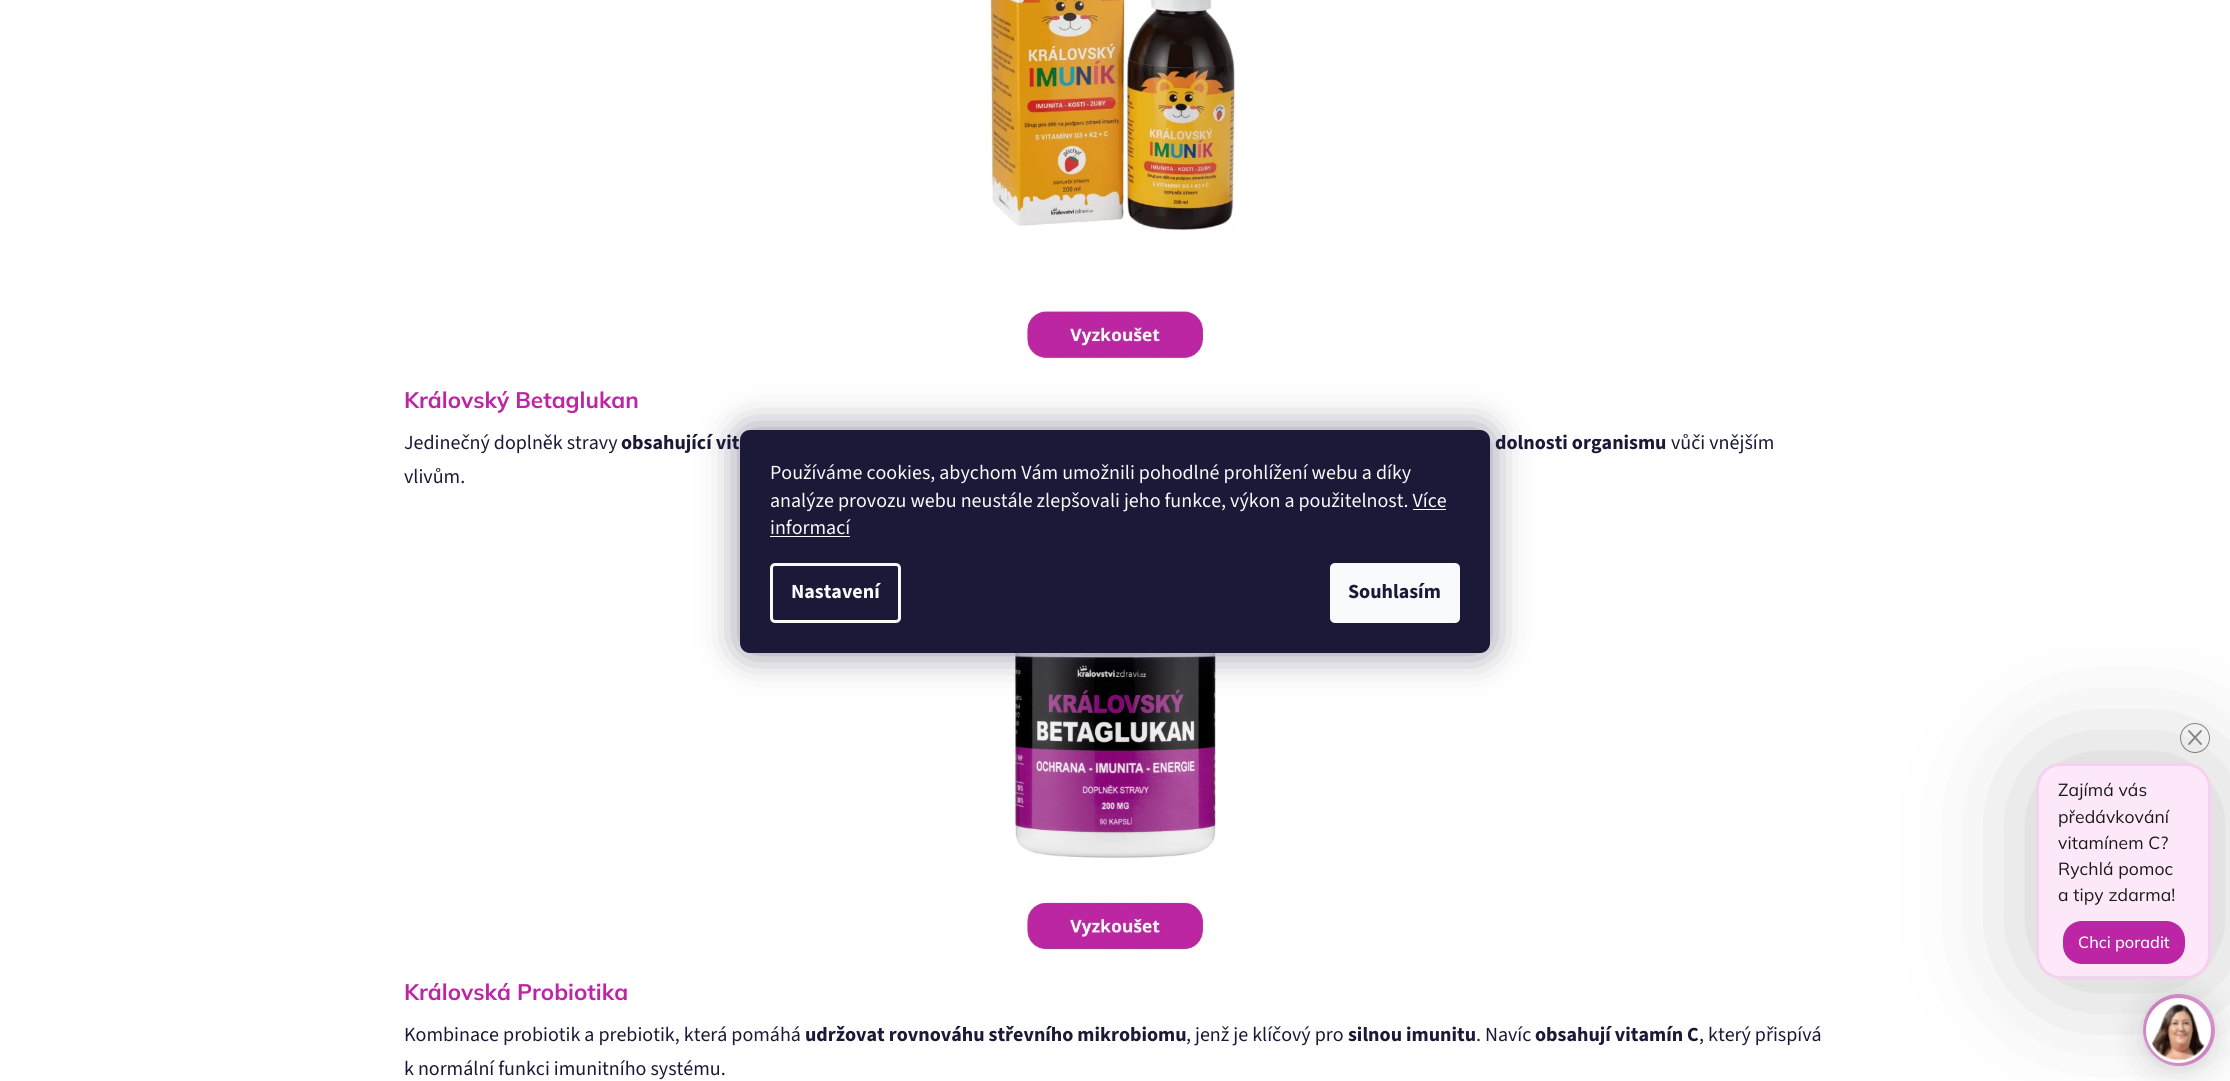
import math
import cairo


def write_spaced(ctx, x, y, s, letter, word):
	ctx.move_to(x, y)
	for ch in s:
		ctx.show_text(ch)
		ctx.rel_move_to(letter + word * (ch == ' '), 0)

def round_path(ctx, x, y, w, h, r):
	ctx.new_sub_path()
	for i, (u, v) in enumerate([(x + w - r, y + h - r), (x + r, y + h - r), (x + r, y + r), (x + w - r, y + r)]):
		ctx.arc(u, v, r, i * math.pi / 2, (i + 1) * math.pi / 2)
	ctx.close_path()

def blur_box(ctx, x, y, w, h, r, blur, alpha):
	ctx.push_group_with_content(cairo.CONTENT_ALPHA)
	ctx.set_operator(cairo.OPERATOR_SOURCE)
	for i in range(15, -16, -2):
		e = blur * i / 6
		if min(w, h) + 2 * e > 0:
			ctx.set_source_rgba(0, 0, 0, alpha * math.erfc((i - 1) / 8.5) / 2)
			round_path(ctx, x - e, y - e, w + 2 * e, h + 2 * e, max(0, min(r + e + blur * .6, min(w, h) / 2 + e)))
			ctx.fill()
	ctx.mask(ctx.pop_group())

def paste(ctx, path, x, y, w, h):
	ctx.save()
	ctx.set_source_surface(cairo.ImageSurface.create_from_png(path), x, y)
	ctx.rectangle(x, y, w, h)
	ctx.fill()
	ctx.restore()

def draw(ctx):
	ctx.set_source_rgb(1, 1, 1)
	ctx.paint()
	paste(ctx, 'media/1.png', 989, 0, 247, 231)
	paste(ctx, 'media/2.png', 1026, 310, 179, 49)
	ctx.select_font_face('Mulish', cairo.FONT_SLANT_NORMAL, cairo.FONT_WEIGHT_BOLD)
	ctx.set_font_size(22.5)
	ctx.set_source_rgb(0.737, 0.145, 0.643)
	ctx.move_to(404, 408)
	ctx.show_text('Královský Betaglukan')
	ctx.select_font_face('Source Sans 3')
	ctx.set_font_size(20)
	ctx.set_source_rgb(0.102, 0.098, 0.216)
	ctx.move_to(404, 449)
	ctx.show_text('Jedinečný doplněk stravy')
	ctx.select_font_face('Source Sans 3', cairo.FONT_SLANT_NORMAL, cairo.FONT_WEIGHT_BOLD)
	ctx.move_to(621, 449)
	ctx.show_text('obsahující vit')
	ctx.move_to(1495, 449)
	ctx.show_text('dolnosti organismu')
	ctx.select_font_face('Source Sans 3')
	ctx.move_to(1671, 449)
	ctx.show_text('vůči vnějším')
	ctx.move_to(404, 483)
	ctx.show_text('vlivům.')
	paste(ctx, 'media/3.png', 1014, 653, 202, 205)
	paste(ctx, 'media/4.png', 1026, 902, 179, 48)
	ctx.select_font_face('Mulish', cairo.FONT_SLANT_NORMAL, cairo.FONT_WEIGHT_BOLD)
	ctx.set_font_size(22.5)
	ctx.set_source_rgb(0.737, 0.145, 0.643)
	ctx.move_to(404, 1000)
	ctx.show_text('Královská Probiotika')
	ctx.select_font_face('Source Sans 3')
	ctx.set_font_size(20)
	ctx.set_source_rgb(0.102, 0.098, 0.216)
	ctx.move_to(404, 1041)
	ctx.show_text('Kombinace probiotik a prebiotik, která pomáhá')
	ctx.select_font_face('Source Sans 3', cairo.FONT_SLANT_NORMAL, cairo.FONT_WEIGHT_BOLD)
	ctx.move_to(805, 1041)
	ctx.show_text('udržovat rovnováhu střevního mikrobiomu')
	ctx.select_font_face('Source Sans 3')
	ctx.move_to(1186, 1041)
	ctx.show_text(', jenž je klíčový pro')
	ctx.select_font_face('Source Sans 3', cairo.FONT_SLANT_NORMAL, cairo.FONT_WEIGHT_BOLD)
	ctx.move_to(1348, 1041)
	ctx.show_text('silnou imunitu')
	ctx.select_font_face('Source Sans 3')
	ctx.move_to(1476, 1041)
	ctx.show_text('. Navíc')
	ctx.select_font_face('Source Sans 3', cairo.FONT_SLANT_NORMAL, cairo.FONT_WEIGHT_BOLD)
	ctx.move_to(1535, 1041)
	ctx.show_text('obsahují vitamín C')
	ctx.select_font_face('Source Sans 3')
	ctx.move_to(1699, 1041)
	ctx.show_text(', který přispívá')
	ctx.move_to(404, 1075)
	ctx.show_text('k normální funkci imunitního systému.')
	ctx.set_source_rgb(0.106, 0.098, 0.224)
	blur_box(ctx, 740, 430, 750, 223, 10, 19, 0.5)
	ctx.set_source_rgb(0.102, 0.098, 0.216)
	round_path(ctx, 740, 430, 750, 223, 10)
	ctx.fill()
	ctx.set_source_rgb(0.973, 0.98, 0.984)
	for x, y, s in [
		(770, 479, 'Používáme cookies, abychom Vám umožnili pohodlné prohlížení webu a díky'),
		(770, 507, 'analýze provozu webu neustále zlepšovali jeho funkce, výkon a použitelnost. Více'),
		(770, 534, 'informací'),
	]:
		ctx.move_to(x, y)
		ctx.show_text(s)
	ctx.rectangle(1413, 509, 33, 1)
	ctx.fill()
	ctx.rectangle(770, 536, 80, 1)
	ctx.fill()
	round_path(ctx, 771.5, 564.5, 128, 57, 3.5)
	ctx.set_line_width(3)
	ctx.stroke()
	ctx.select_font_face('Source Sans 3', cairo.FONT_SLANT_NORMAL, cairo.FONT_WEIGHT_BOLD)
	ctx.move_to(791, 598)
	ctx.show_text('Nastavení')
	round_path(ctx, 1330, 563, 130, 60, 5)
	ctx.fill()
	ctx.set_source_rgb(0.102, 0.098, 0.216)
	ctx.move_to(1348, 598)
	ctx.show_text('Souhlasím')
	ctx.set_source_rgb(0, 0, 0)
	blur_box(ctx, 2035, 761, 180, 222, 28, 62.5, 0.22)
	ctx.set_source_rgb(0.988, 0.91, 0.976)
	round_path(ctx, 2036, 763, 175, 216, 25)
	ctx.fill()
	round_path(ctx, 2037.5, 764.5, 172, 213, 23.5)
	ctx.set_source_rgba(0.737, 0.145, 0.643, 0.12)
	ctx.stroke()
	ctx.arc(2195, 738, 14.5, 0, 2 * math.pi)
	ctx.set_source_rgba(0.11, 0.098, 0.09, 0.5)
	ctx.set_line_width(1)
	ctx.stroke()
	ctx.new_path()
	ctx.move_to(2189, 744)
	ctx.line_to(2201, 731)
	ctx.move_to(2189, 731)
	ctx.line_to(2201, 744)
	ctx.set_line_width(1.9)
	ctx.set_line_cap(cairo.LINE_CAP_ROUND)
	ctx.set_line_join(cairo.LINE_JOIN_ROUND)
	ctx.stroke()
	ctx.select_font_face('Mulish')
	ctx.set_font_size(17.5)
	ctx.set_source_rgb(0.11, 0.098, 0.09)
	for x, y, s in [
		(2058, 796, 'Zajímá vás'),
		(2058, 823, 'předávkování'),
		(2058, 849, 'vitamínem C?'),
		(2058, 875, 'Rychlá pomoc'),
		(2058, 901, 'a tipy zdarma!'),
	]:
		write_spaced(ctx, x, y, s, 0.1, 0)
	ctx.set_source_rgb(0.737, 0.145, 0.643)
	round_path(ctx, 2063, 921, 122, 43, 19)
	ctx.fill()
	ctx.select_font_face('Mulish Medium')
	ctx.set_font_size(16.25)
	ctx.set_source_rgb(1, 1, 1)
	ctx.move_to(2078, 948)
	ctx.show_text('Chci poradit')
	ctx.set_source_rgb(0, 0, 0)
	blur_box(ctx, 2146, 1005, 65, 65, 32.5, 19, 0.15)
	blur_box(ctx, 2146, 998, 65, 65, 32.5, 4, 0.1)
	gradient = cairo.LinearGradient(2143, 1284, 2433, 994)
	gradient.add_color_stop_rgba(0, 0.737, 0.145, 0.643, 0.5)
	gradient.add_color_stop_rgba(0.25, 1, 1, 1, 1)
	gradient.add_color_stop_rgba(0.5, 0.737, 0.145, 0.643, 0.5)
	gradient.add_color_stop_rgba(0.75, 1, 1, 1, 1)
	gradient.add_color_stop_rgba(1, 0.737, 0.145, 0.643, 0.5)
	ctx.set_source(gradient)
	ctx.arc(2179, 1030, 36, 0, 2 * math.pi)
	ctx.fill()
	ctx.set_source_rgb(1, 1, 1)
	ctx.arc(2178.5, 1030.5, 31, 0, 2 * math.pi)
	ctx.fill_preserve()
	ctx.set_line_width(3)
	ctx.set_line_cap(cairo.LINE_CAP_BUTT)
	ctx.set_line_join(cairo.LINE_JOIN_MITER)
	ctx.stroke()
	paste(ctx, 'media/5.png', 2151, 1004, 54, 57)


surface = cairo.ImageSurface(cairo.FORMAT_RGB24, 2230, 1081)
ctx = cairo.Context(surface)
options = cairo.FontOptions()
options.set_hint_metrics(cairo.HINT_METRICS_OFF)
options.set_hint_style(cairo.HINT_STYLE_NONE)
ctx.set_font_options(options)
ctx.set_miter_limit(4)
draw(ctx)
surface.write_to_png('image.png')
